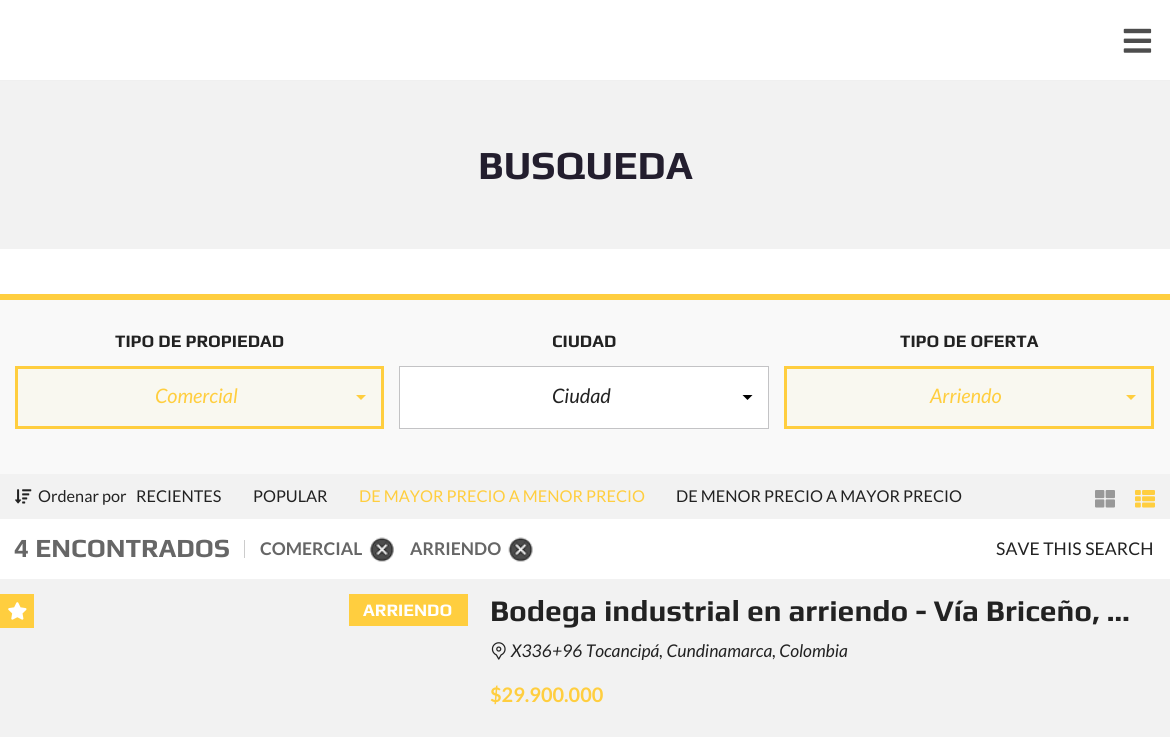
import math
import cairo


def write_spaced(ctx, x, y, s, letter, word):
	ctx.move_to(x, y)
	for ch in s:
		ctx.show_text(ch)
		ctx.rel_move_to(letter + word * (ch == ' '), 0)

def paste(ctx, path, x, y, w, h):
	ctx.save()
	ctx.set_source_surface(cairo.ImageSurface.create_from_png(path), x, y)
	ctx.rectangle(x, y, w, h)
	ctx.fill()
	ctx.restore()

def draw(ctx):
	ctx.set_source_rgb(1, 1, 1)
	ctx.paint()
	paste(ctx, 'media/1.png', 1123, 28, 29, 25)
	ctx.set_source_rgb(0.941, 0.941, 0.941)
	ctx.rectangle(0, 80, 1170, 1)
	ctx.fill()
	ctx.set_source_rgb(0.949, 0.949, 0.949)
	ctx.rectangle(0, 81, 1170, 168)
	ctx.fill()
	ctx.select_font_face('Play', cairo.FONT_SLANT_NORMAL, cairo.FONT_WEIGHT_BOLD)
	ctx.set_font_size(40)
	ctx.set_source_rgb(0.137, 0.118, 0.18)
	ctx.move_to(478, 179)
	ctx.show_text('BUSQUEDA')
	ctx.set_source_rgb(0.976, 0.976, 0.976)
	ctx.rectangle(0, 300, 1170, 174)
	ctx.fill()
	ctx.set_source_rgb(1, 0.808, 0.247)
	ctx.rectangle(0, 294, 1170, 6)
	ctx.fill()
	ctx.set_font_size(17.5)
	ctx.set_source_rgb(0.133, 0.133, 0.133)
	ctx.move_to(115, 347)
	ctx.show_text('TIPO DE PROPIEDAD')
	ctx.set_source_rgb(0.976, 0.969, 0.941)
	ctx.rectangle(16.5, 367.5, 366, 60)
	ctx.fill_preserve()
	ctx.set_source_rgb(1, 0.808, 0.247)
	ctx.set_line_width(3)
	ctx.stroke()
	ctx.select_font_face('Lato', cairo.FONT_SLANT_ITALIC)
	ctx.set_font_size(20)
	ctx.move_to(155, 403)
	ctx.show_text('Comercial')
	ctx.new_path()
	ctx.move_to(356, 395)
	ctx.line_to(366, 395)
	ctx.line_to(361, 400)
	ctx.close_path()
	ctx.fill()
	ctx.select_font_face('Play', cairo.FONT_SLANT_NORMAL, cairo.FONT_WEIGHT_BOLD)
	ctx.set_font_size(17.5)
	ctx.set_source_rgb(0.133, 0.133, 0.133)
	ctx.move_to(552, 347)
	ctx.show_text('CIUDAD')
	ctx.set_source_rgb(1, 1, 1)
	ctx.rectangle(399.5, 366.5, 369, 62)
	ctx.fill_preserve()
	ctx.set_source_rgb(0.765, 0.765, 0.773)
	ctx.set_line_width(1)
	ctx.stroke()
	ctx.select_font_face('Lato', cairo.FONT_SLANT_ITALIC)
	ctx.set_font_size(20)
	ctx.set_source_rgb(0.133, 0.133, 0.133)
	ctx.move_to(552, 403)
	ctx.show_text('Ciudad')
	ctx.set_source_rgb(0, 0, 0)
	ctx.new_path()
	ctx.move_to(742.5, 395)
	ctx.line_to(752.5, 395)
	ctx.line_to(747.5, 400)
	ctx.close_path()
	ctx.fill()
	ctx.select_font_face('Play', cairo.FONT_SLANT_NORMAL, cairo.FONT_WEIGHT_BOLD)
	ctx.set_font_size(17.5)
	ctx.set_source_rgb(0.133, 0.133, 0.133)
	ctx.move_to(900, 347)
	ctx.show_text('TIPO DE OFERTA')
	ctx.set_source_rgb(0.976, 0.969, 0.941)
	ctx.rectangle(785.5, 367.5, 367, 60)
	ctx.fill_preserve()
	ctx.set_source_rgb(1, 0.808, 0.247)
	ctx.set_line_width(3)
	ctx.stroke()
	ctx.select_font_face('Lato', cairo.FONT_SLANT_ITALIC)
	ctx.set_font_size(20)
	ctx.move_to(930, 403)
	ctx.show_text('Arriendo')
	ctx.new_path()
	ctx.move_to(1126, 395)
	ctx.line_to(1136, 395)
	ctx.line_to(1131, 400)
	ctx.close_path()
	ctx.fill()
	ctx.set_source_rgb(0.949, 0.949, 0.949)
	ctx.rectangle(0, 474, 1170, 45)
	ctx.fill()
	paste(ctx, 'media/2.png', 15, 489, 17, 15)
	ctx.select_font_face('Lato')
	ctx.set_font_size(16.25)
	ctx.set_source_rgb(0.133, 0.133, 0.133)
	for x, y, s in [
		(38, 502, 'Ordenar por'),
		(136, 502, 'RECIENTES'),
		(253, 502, 'POPULAR'),
	]:
		ctx.move_to(x, y)
		ctx.show_text(s)
	ctx.set_source_rgb(1, 0.808, 0.247)
	ctx.move_to(359, 502)
	ctx.show_text('DE MAYOR PRECIO A MENOR PRECIO')
	ctx.set_source_rgb(0.133, 0.133, 0.133)
	ctx.move_to(676, 502)
	ctx.show_text('DE MENOR PRECIO A MAYOR PRECIO')
	paste(ctx, 'media/3.png', 1095, 490, 20, 18)
	paste(ctx, 'media/4.png', 1135, 490, 20, 18)
	ctx.select_font_face('Play', cairo.FONT_SLANT_NORMAL, cairo.FONT_WEIGHT_BOLD)
	ctx.set_font_size(26.25)
	ctx.set_source_rgb(0.4, 0.4, 0.4)
	ctx.move_to(14, 557)
	ctx.show_text('4 ENCONTRADOS')
	ctx.set_source_rgb(0.8, 0.8, 0.8)
	ctx.rectangle(244, 540, 1, 18)
	ctx.fill()
	ctx.select_font_face('Lato', cairo.FONT_SLANT_NORMAL, cairo.FONT_WEIGHT_BOLD)
	ctx.set_font_size(17.5)
	ctx.set_source_rgb(0.4, 0.4, 0.4)
	ctx.move_to(260, 555)
	ctx.show_text('COMERCIAL')
	paste(ctx, 'media/5.png', 369, 537, 25, 25)
	ctx.move_to(410, 555)
	ctx.show_text('ARRIENDO')
	paste(ctx, 'media/6.png', 508, 537, 25, 25)
	ctx.select_font_face('Lato')
	ctx.set_source_rgb(0.133, 0.133, 0.133)
	write_spaced(ctx, 996, 555, 'SAVE THIS SEARCH', 0.1, 0)
	ctx.set_source_rgb(0.949, 0.949, 0.949)
	ctx.rectangle(0, 579, 1170, 158)
	ctx.fill()
	ctx.set_source_rgb(1, 0.808, 0.247)
	ctx.rectangle(0, 594, 34, 34)
	ctx.fill()
	paste(ctx, 'media/7.png', 8, 602, 19, 18)
	ctx.rectangle(349, 594, 119, 32)
	ctx.fill()
	ctx.select_font_face('Play', cairo.FONT_SLANT_NORMAL, cairo.FONT_WEIGHT_BOLD)
	ctx.set_source_rgb(1, 1, 1)
	ctx.move_to(363, 616)
	ctx.show_text('ARRIENDO')
	ctx.set_font_size(30)
	ctx.set_source_rgb(0.133, 0.133, 0.133)
	ctx.move_to(490, 621)
	ctx.show_text('Bodega industrial en arriendo - Vía Briceño, …')
	paste(ctx, 'media/8.png', 491, 642, 15, 18)
	ctx.select_font_face('Lato', cairo.FONT_SLANT_ITALIC)
	ctx.set_font_size(17.5)
	ctx.move_to(511, 657)
	ctx.show_text('X336+96 Tocancipá, Cundinamarca, Colombia')
	ctx.select_font_face('Lato', cairo.FONT_SLANT_NORMAL, cairo.FONT_WEIGHT_BOLD)
	ctx.set_font_size(20)
	ctx.set_source_rgb(1, 0.808, 0.247)
	ctx.move_to(490, 702)
	ctx.show_text('$29.900.000')


surface = cairo.ImageSurface(cairo.FORMAT_RGB24, 1170, 737)
ctx = cairo.Context(surface)
options = cairo.FontOptions()
options.set_hint_metrics(cairo.HINT_METRICS_OFF)
options.set_hint_style(cairo.HINT_STYLE_NONE)
ctx.set_font_options(options)
ctx.set_miter_limit(4)
draw(ctx)
surface.write_to_png('image.png')
